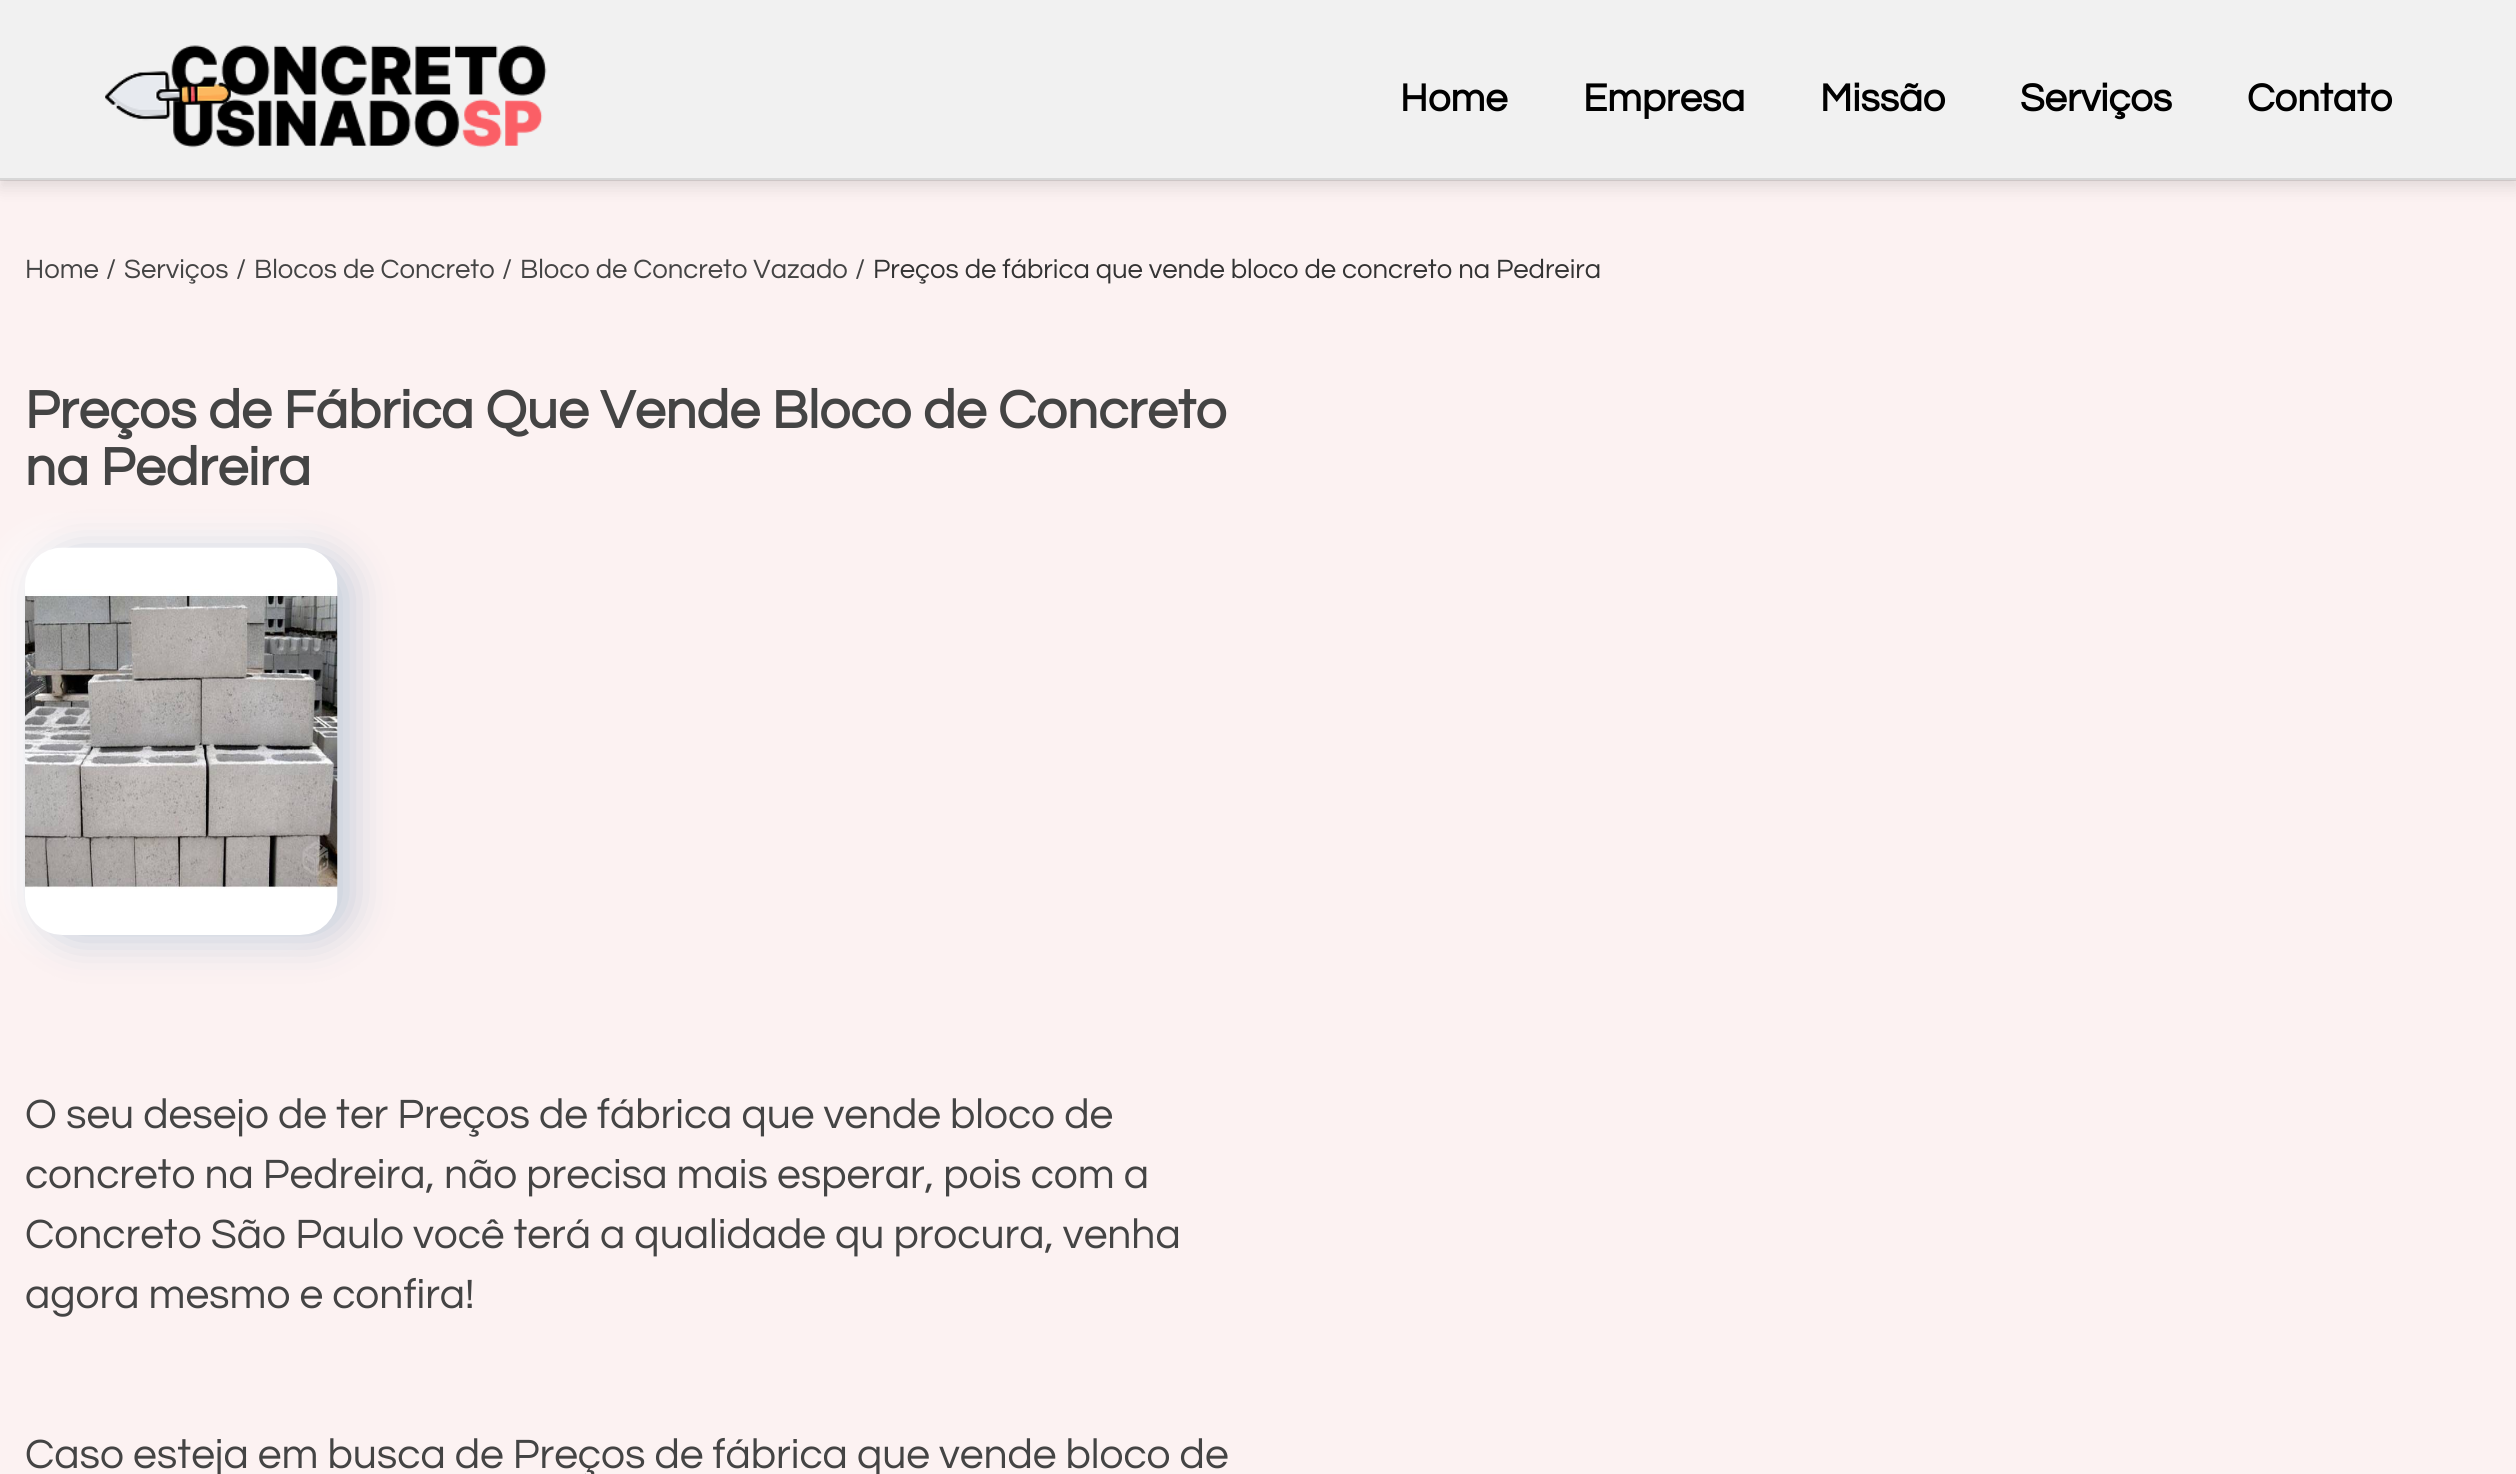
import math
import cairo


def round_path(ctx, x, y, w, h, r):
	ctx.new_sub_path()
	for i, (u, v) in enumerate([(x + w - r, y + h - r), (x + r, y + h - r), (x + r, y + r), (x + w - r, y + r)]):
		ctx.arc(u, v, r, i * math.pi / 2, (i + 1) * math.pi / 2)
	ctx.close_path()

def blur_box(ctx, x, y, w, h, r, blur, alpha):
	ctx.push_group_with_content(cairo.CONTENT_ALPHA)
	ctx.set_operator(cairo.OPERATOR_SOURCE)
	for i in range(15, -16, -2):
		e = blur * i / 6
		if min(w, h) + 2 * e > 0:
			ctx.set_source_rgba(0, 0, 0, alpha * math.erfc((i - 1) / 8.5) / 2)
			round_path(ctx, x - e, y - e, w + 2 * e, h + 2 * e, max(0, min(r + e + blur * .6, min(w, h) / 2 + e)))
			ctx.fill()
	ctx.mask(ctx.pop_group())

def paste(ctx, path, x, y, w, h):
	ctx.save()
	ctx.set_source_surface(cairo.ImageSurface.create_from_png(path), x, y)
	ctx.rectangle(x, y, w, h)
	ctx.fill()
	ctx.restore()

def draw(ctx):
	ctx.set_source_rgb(0.988, 0.949, 0.949)
	ctx.paint()
	ctx.set_source_rgb(0, 0, 0)
	blur_box(ctx, 0, 8, 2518, 180, 0, 7.5, 0.1)
	ctx.set_source_rgb(0.945, 0.945, 0.945)
	ctx.rectangle(0, 0, 2516, 180)
	ctx.fill()
	ctx.set_source_rgba(0, 0, 0, 0.11)
	ctx.rectangle(0, 178, 2516, 3)
	ctx.fill()
	paste(ctx, 'media/1.png', 105, 45, 442, 103)
	ctx.select_font_face('Questrial', cairo.FONT_SLANT_NORMAL, cairo.FONT_WEIGHT_BOLD)
	ctx.set_font_size(40)
	ctx.set_source_rgb(0, 0, 0)
	for x, y, s in [
		(1400, 111, 'Home'),
		(1583, 111, 'Empresa'),
		(1820, 111, 'Missão'),
		(2020, 111, 'Serviços'),
		(2247, 111, 'Contato'),
	]:
		ctx.move_to(x, y)
		ctx.show_text(s)
	ctx.select_font_face('Questrial')
	ctx.set_font_size(27.5)
	ctx.set_source_rgb(0.267, 0.267, 0.267)
	for x, y, s in [
		(25, 278, 'Home'),
		(106, 278, '/'),
		(124, 278, 'Serviços'),
		(236, 278, '/'),
		(254, 278, 'Blocos de Concreto'),
		(502, 278, '/'),
		(520, 278, 'Bloco de Concreto Vazado'),
		(855, 278, '/'),
	]:
		ctx.move_to(x, y)
		ctx.show_text(s)
	ctx.set_source_rgb(0.2, 0.2, 0.2)
	ctx.move_to(873, 278)
	ctx.show_text('Preços de fábrica que vende bloco de concreto na Pedreira')
	ctx.select_font_face('Questrial', cairo.FONT_SLANT_NORMAL, cairo.FONT_WEIGHT_BOLD)
	ctx.set_font_size(55)
	ctx.set_source_rgb(0.267, 0.267, 0.267)
	ctx.move_to(25, 428)
	ctx.show_text('Preços de Fábrica Que Vende Bloco de Concreto')
	ctx.move_to(25, 485)
	ctx.show_text('na Pedreira')
	ctx.set_source_rgb(1, 1, 1)
	blur_box(ctx, 10, 543, 313, 387, 38, 20, 0.8)
	ctx.set_source_rgb(0.533, 0.647, 0.749)
	blur_box(ctx, 40, 553, 313, 387, 38, 20, 0.48)
	paste(ctx, 'media/2.png', 25, 547, 313, 388)
	ctx.select_font_face('Questrial')
	ctx.set_font_size(42.5)
	ctx.set_source_rgb(0.267, 0.267, 0.267)
	for x, y, s in [
		(25, 1128, 'O seu desejo de ter Preços de fábrica que vende bloco de'),
		(25, 1188, 'concreto na Pedreira, não precisa mais esperar, pois com a'),
		(25, 1248, 'Concreto São Paulo você terá a qualidade qu procura, venha'),
		(25, 1308, 'agora mesmo e confira!'),
		(25, 1468, 'Caso esteja em busca de Preços de fábrica que vende bloco de'),
	]:
		ctx.move_to(x, y)
		ctx.show_text(s)


surface = cairo.ImageSurface(cairo.FORMAT_RGB24, 2516, 1474)
ctx = cairo.Context(surface)
options = cairo.FontOptions()
options.set_hint_metrics(cairo.HINT_METRICS_OFF)
options.set_hint_style(cairo.HINT_STYLE_NONE)
ctx.set_font_options(options)
ctx.set_miter_limit(4)
draw(ctx)
surface.write_to_png('image.png')
